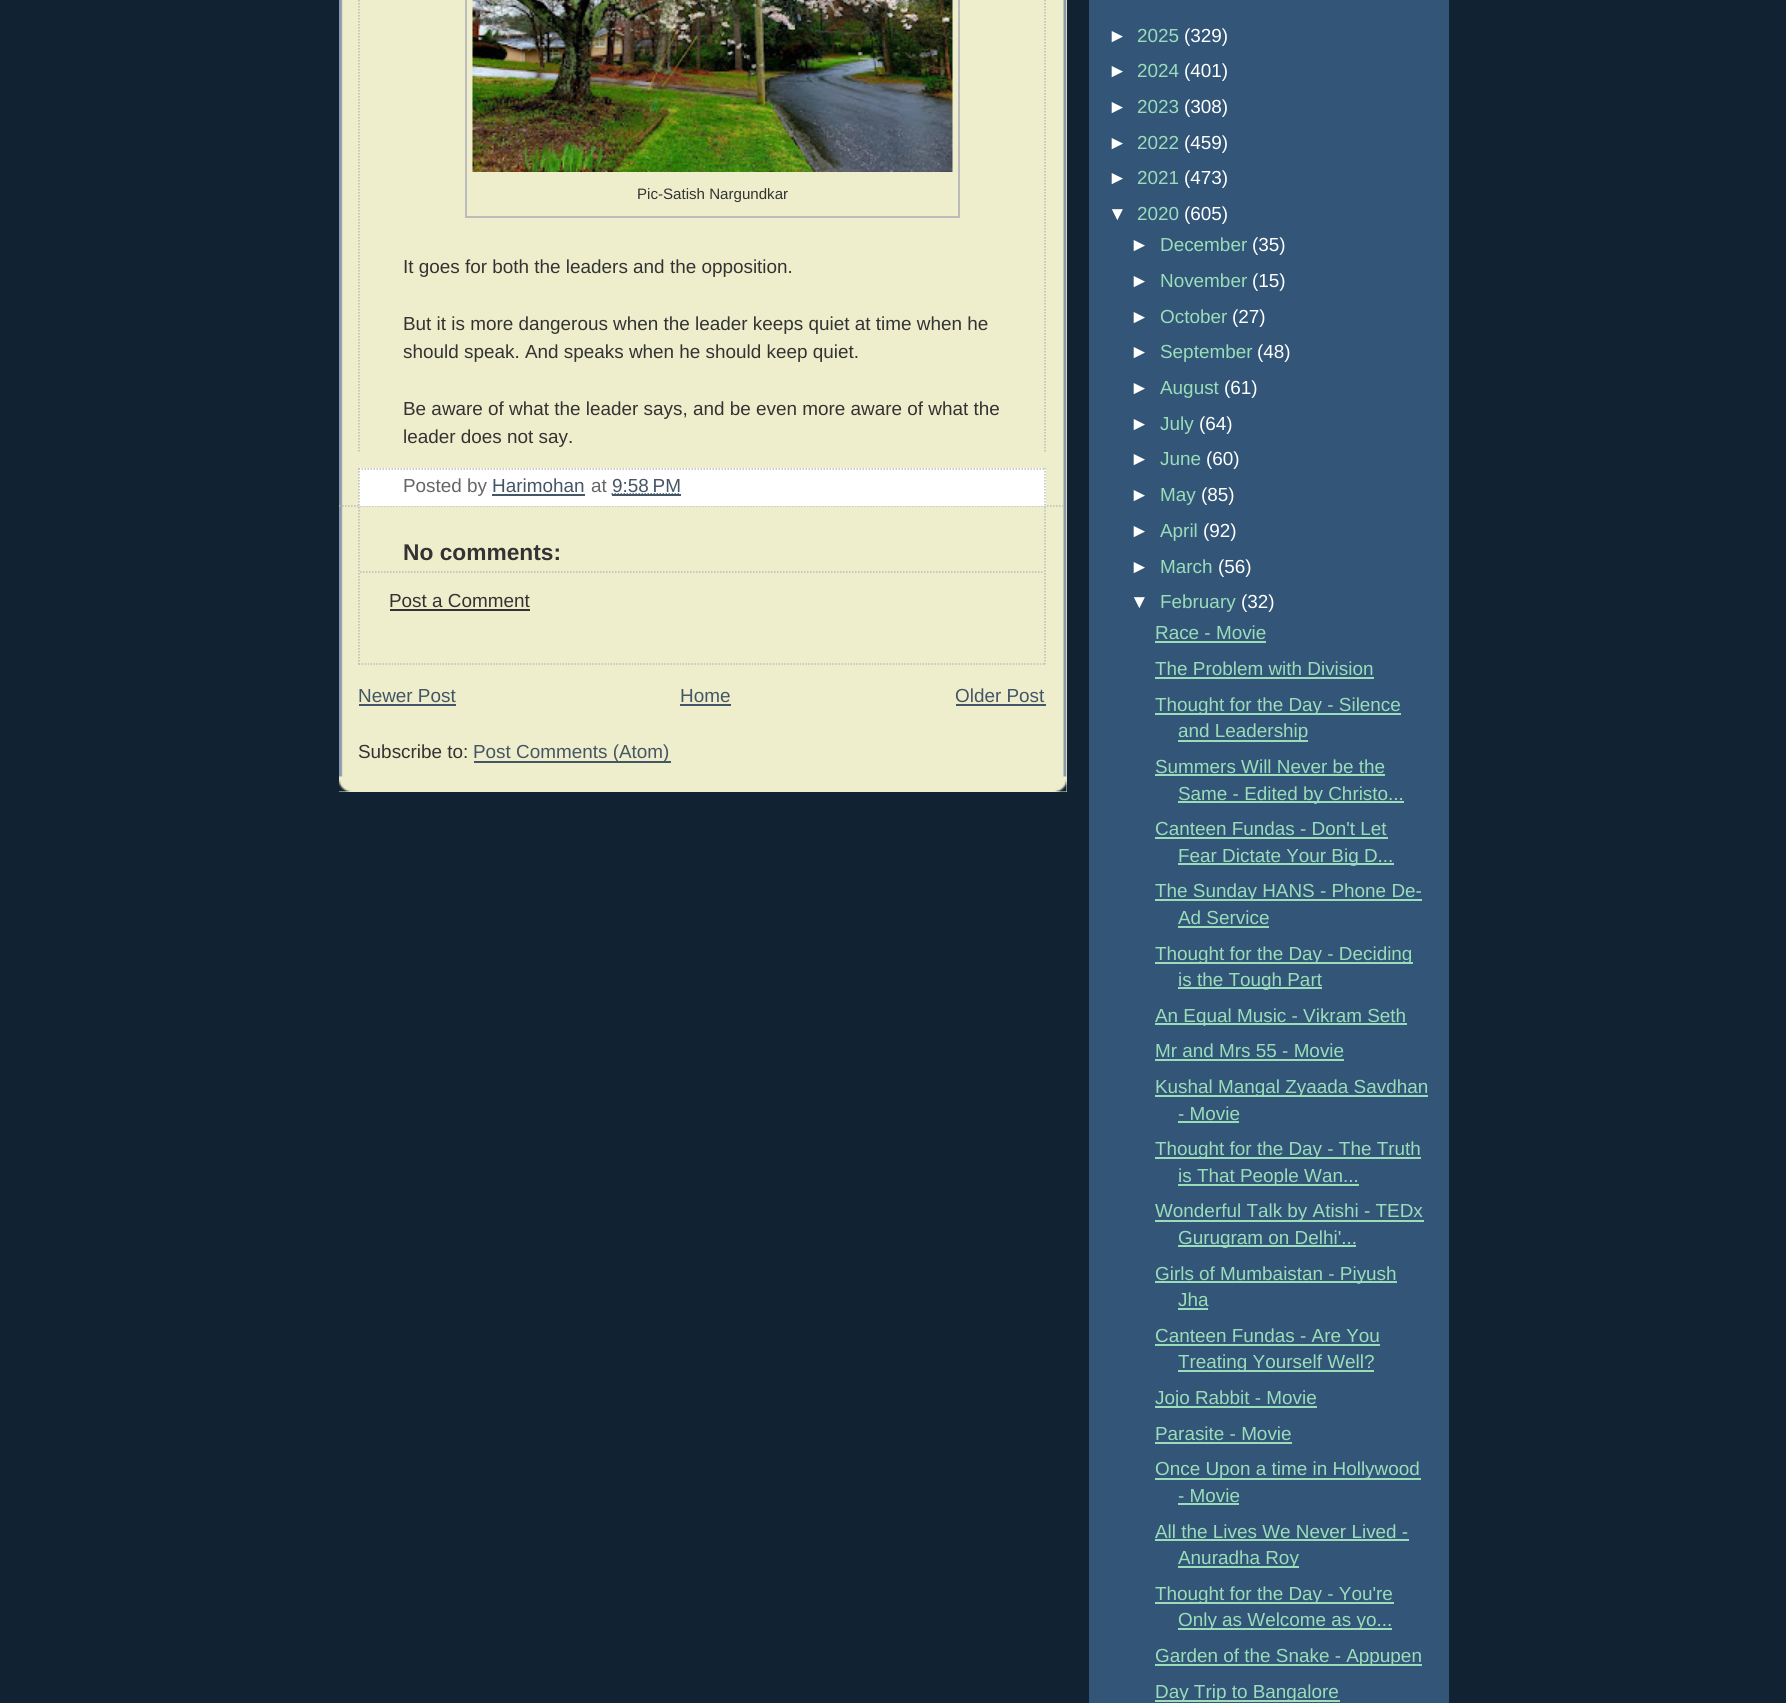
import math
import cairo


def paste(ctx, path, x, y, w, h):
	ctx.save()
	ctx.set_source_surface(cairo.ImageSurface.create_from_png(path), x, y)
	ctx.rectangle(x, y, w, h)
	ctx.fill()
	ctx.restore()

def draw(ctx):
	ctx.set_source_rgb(0.067, 0.133, 0.2)
	ctx.paint()
	ctx.set_source_rgb(0.933, 0.933, 0.8)
	ctx.rectangle(339, 0, 728, 792)
	ctx.fill()
	paste(ctx, 'media/1.png', 339, 779, 728, 13)
	paste(ctx, 'media/2.png', 339, 0, 728, 777)
	ctx.new_path()
	ctx.move_to(339, 506)
	ctx.line_to(1065, 506)
	ctx.set_source_rgb(0.733, 0.733, 0.733)
	ctx.set_line_width(1.5)
	ctx.set_dash([1.5, 1.5])
	ctx.stroke()
	ctx.new_path()
	ctx.move_to(1045, -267)
	ctx.line_to(1045, 453)
	ctx.stroke()
	ctx.new_path()
	ctx.move_to(359, -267)
	ctx.line_to(359, 453)
	ctx.stroke()
	ctx.rectangle(466, -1, 493, 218)
	ctx.set_line_width(2)
	ctx.set_dash([])
	ctx.stroke()
	paste(ctx, 'media/3.png', 472, 0, 481, 172)
	ctx.select_font_face('Liberation Sans')
	ctx.set_font_size(15.1)
	ctx.set_source_rgb(0.2, 0.2, 0.2)
	ctx.move_to(637, 199)
	ctx.show_text('Pic-Satish Nargundkar')
	ctx.set_font_size(18.9)
	for x, y, s in [
		(403, 273, 'It goes for both the leaders and the opposition.'),
		(403, 330, 'But it is more dangerous when the leader keeps quiet at time when he'),
		(403, 358, 'should speak. And speaks when he should keep quiet.'),
		(403, 415, 'Be aware of what the leader says, and be even more aware of what the'),
		(403, 443, 'leader does not say.'),
	]:
		ctx.move_to(x, y)
		ctx.show_text(s)
	ctx.set_source_rgb(1, 1, 1)
	ctx.rectangle(359, 468, 687, 38)
	ctx.fill()
	ctx.new_path()
	ctx.move_to(358.5, 469)
	ctx.line_to(1045.5, 469)
	ctx.set_source_rgb(0.733, 0.733, 0.733)
	ctx.set_line_width(1.5)
	ctx.set_dash([1.5, 1.5])
	ctx.stroke()
	ctx.new_path()
	ctx.move_to(1045, 468)
	ctx.line_to(1045, 505.5)
	ctx.stroke()
	ctx.new_path()
	ctx.move_to(359, 468)
	ctx.line_to(359, 505.5)
	ctx.stroke()
	ctx.set_source_rgb(0.4, 0.4, 0.4)
	ctx.move_to(403, 492)
	ctx.show_text('Posted by')
	ctx.set_source_rgb(0.267, 0.333, 0.4)
	ctx.move_to(492, 492)
	ctx.show_text('Harimohan')
	ctx.rectangle(492, 494, 93, 2)
	ctx.fill()
	ctx.set_source_rgb(0.4, 0.4, 0.4)
	ctx.move_to(591, 492)
	ctx.show_text('at')
	ctx.set_source_rgb(0.267, 0.333, 0.4)
	ctx.move_to(612, 492)
	ctx.show_text('9:58 PM')
	ctx.new_path()
	ctx.move_to(611.5, 494)
	ctx.line_to(680.5, 494)
	ctx.stroke()
	ctx.rectangle(612, 494, 69, 2)
	ctx.fill()
	ctx.new_path()
	ctx.move_to(1045, 507)
	ctx.line_to(1045, 664.5)
	ctx.set_source_rgb(0.733, 0.733, 0.733)
	ctx.stroke()
	ctx.new_path()
	ctx.move_to(358.5, 664)
	ctx.line_to(1045.5, 664)
	ctx.stroke()
	ctx.new_path()
	ctx.move_to(359, 507)
	ctx.line_to(359, 664.5)
	ctx.stroke()
	ctx.new_path()
	ctx.move_to(360, 572)
	ctx.line_to(1044, 572)
	ctx.stroke()
	ctx.select_font_face('Liberation Sans', cairo.FONT_SLANT_NORMAL, cairo.FONT_WEIGHT_BOLD)
	ctx.set_font_size(22.75)
	ctx.set_source_rgb(0.2, 0.2, 0.2)
	ctx.move_to(403, 560)
	ctx.show_text('No comments:')
	ctx.select_font_face('Liberation Sans')
	ctx.set_font_size(18.9)
	ctx.move_to(389, 607)
	ctx.show_text('Post a Comment')
	ctx.rectangle(390, 609, 140, 2)
	ctx.fill()
	ctx.set_source_rgb(0.267, 0.333, 0.4)
	ctx.move_to(358, 702)
	ctx.show_text('Newer Post')
	ctx.rectangle(359, 704, 97, 2)
	ctx.fill()
	ctx.move_to(680, 702)
	ctx.show_text('Home')
	ctx.rectangle(680, 704, 51, 2)
	ctx.fill()
	ctx.move_to(955, 702)
	ctx.show_text('Older Post')
	ctx.rectangle(956, 704, 90, 2)
	ctx.fill()
	ctx.set_source_rgb(0.2, 0.2, 0.2)
	ctx.move_to(358, 758)
	ctx.show_text('Subscribe to:')
	ctx.set_source_rgb(0.267, 0.333, 0.4)
	ctx.rectangle(474, 761, 197, 2)
	ctx.fill()
	ctx.move_to(473, 758)
	ctx.show_text('Post Comments (Atom)')
	ctx.set_source_rgb(0.2, 0.333, 0.467)
	ctx.rectangle(1089, 0, 360, 1703)
	ctx.fill()
	ctx.set_source_rgb(1, 1, 1)
	ctx.move_to(1108, 42)
	ctx.show_text('►')
	ctx.set_source_rgb(0.6, 0.867, 0.733)
	ctx.move_to(1137, 42)
	ctx.show_text('2025')
	ctx.set_source_rgb(1, 1, 1)
	ctx.move_to(1184, 42)
	ctx.show_text('(329)')
	ctx.move_to(1108, 77)
	ctx.show_text('►')
	ctx.set_source_rgb(0.6, 0.867, 0.733)
	ctx.move_to(1137, 77)
	ctx.show_text('2024')
	ctx.set_source_rgb(1, 1, 1)
	ctx.move_to(1184, 77)
	ctx.show_text('(401)')
	ctx.move_to(1108, 113)
	ctx.show_text('►')
	ctx.set_source_rgb(0.6, 0.867, 0.733)
	ctx.move_to(1137, 113)
	ctx.show_text('2023')
	ctx.set_source_rgb(1, 1, 1)
	ctx.move_to(1184, 113)
	ctx.show_text('(308)')
	ctx.move_to(1108, 149)
	ctx.show_text('►')
	ctx.set_source_rgb(0.6, 0.867, 0.733)
	ctx.move_to(1137, 149)
	ctx.show_text('2022')
	ctx.set_source_rgb(1, 1, 1)
	ctx.move_to(1184, 149)
	ctx.show_text('(459)')
	ctx.move_to(1108, 184)
	ctx.show_text('►')
	ctx.set_source_rgb(0.6, 0.867, 0.733)
	ctx.move_to(1137, 184)
	ctx.show_text('2021')
	ctx.set_source_rgb(1, 1, 1)
	ctx.move_to(1184, 184)
	ctx.show_text('(473)')
	ctx.move_to(1108, 220)
	ctx.show_text('▼')
	ctx.set_source_rgb(0.6, 0.867, 0.733)
	ctx.move_to(1137, 220)
	ctx.show_text('2020')
	ctx.set_source_rgb(1, 1, 1)
	ctx.move_to(1184, 220)
	ctx.show_text('(605)')
	ctx.move_to(1130, 251)
	ctx.show_text('►')
	ctx.set_source_rgb(0.6, 0.867, 0.733)
	ctx.move_to(1160, 251)
	ctx.show_text('December')
	ctx.set_source_rgb(1, 1, 1)
	ctx.move_to(1252, 251)
	ctx.show_text('(35)')
	ctx.move_to(1130, 287)
	ctx.show_text('►')
	ctx.set_source_rgb(0.6, 0.867, 0.733)
	ctx.move_to(1160, 287)
	ctx.show_text('November')
	ctx.set_source_rgb(1, 1, 1)
	ctx.move_to(1252, 287)
	ctx.show_text('(15)')
	ctx.move_to(1130, 323)
	ctx.show_text('►')
	ctx.set_source_rgb(0.6, 0.867, 0.733)
	ctx.move_to(1160, 323)
	ctx.show_text('October')
	ctx.set_source_rgb(1, 1, 1)
	ctx.move_to(1232, 323)
	ctx.show_text('(27)')
	ctx.move_to(1130, 358)
	ctx.show_text('►')
	ctx.set_source_rgb(0.6, 0.867, 0.733)
	ctx.move_to(1160, 358)
	ctx.show_text('September')
	ctx.set_source_rgb(1, 1, 1)
	ctx.move_to(1257, 358)
	ctx.show_text('(48)')
	ctx.move_to(1130, 394)
	ctx.show_text('►')
	ctx.set_source_rgb(0.6, 0.867, 0.733)
	ctx.move_to(1160, 394)
	ctx.show_text('August')
	ctx.set_source_rgb(1, 1, 1)
	ctx.move_to(1224, 394)
	ctx.show_text('(61)')
	ctx.move_to(1130, 430)
	ctx.show_text('►')
	ctx.set_source_rgb(0.6, 0.867, 0.733)
	ctx.move_to(1160, 430)
	ctx.show_text('July')
	ctx.set_source_rgb(1, 1, 1)
	ctx.move_to(1199, 430)
	ctx.show_text('(64)')
	ctx.move_to(1130, 465)
	ctx.show_text('►')
	ctx.set_source_rgb(0.6, 0.867, 0.733)
	ctx.move_to(1160, 465)
	ctx.show_text('June')
	ctx.set_source_rgb(1, 1, 1)
	ctx.move_to(1206, 465)
	ctx.show_text('(60)')
	ctx.move_to(1130, 501)
	ctx.show_text('►')
	ctx.set_source_rgb(0.6, 0.867, 0.733)
	ctx.move_to(1160, 501)
	ctx.show_text('May')
	ctx.set_source_rgb(1, 1, 1)
	ctx.move_to(1201, 501)
	ctx.show_text('(85)')
	ctx.move_to(1130, 537)
	ctx.show_text('►')
	ctx.set_source_rgb(0.6, 0.867, 0.733)
	ctx.move_to(1160, 537)
	ctx.show_text('April')
	ctx.set_source_rgb(1, 1, 1)
	ctx.move_to(1203, 537)
	ctx.show_text('(92)')
	ctx.move_to(1130, 573)
	ctx.show_text('►')
	ctx.set_source_rgb(0.6, 0.867, 0.733)
	ctx.move_to(1160, 573)
	ctx.show_text('March')
	ctx.set_source_rgb(1, 1, 1)
	ctx.move_to(1218, 573)
	ctx.show_text('(56)')
	ctx.move_to(1130, 608)
	ctx.show_text('▼')
	ctx.set_source_rgb(0.6, 0.867, 0.733)
	ctx.move_to(1160, 608)
	ctx.show_text('February')
	ctx.set_source_rgb(1, 1, 1)
	ctx.move_to(1241, 608)
	ctx.show_text('(32)')
	ctx.set_source_rgb(0.6, 0.867, 0.733)
	ctx.move_to(1155, 639)
	ctx.show_text('Race - Movie')
	ctx.rectangle(1155, 641, 111, 2)
	ctx.fill()
	ctx.move_to(1155, 675)
	ctx.show_text('The Problem with Division')
	ctx.rectangle(1155, 677, 219, 2)
	ctx.fill()
	ctx.rectangle(1155, 713, 246, 2)
	ctx.fill()
	ctx.move_to(1155, 711)
	ctx.show_text('Thought for the Day - Silence')
	ctx.rectangle(1178, 740, 130, 2)
	ctx.fill()
	ctx.move_to(1178, 737)
	ctx.show_text('and Leadership')
	ctx.move_to(1155, 773)
	ctx.show_text('Summers Will Never be the')
	ctx.rectangle(1155, 774, 230, 2)
	ctx.fill()
	ctx.rectangle(1178, 801, 226, 2)
	ctx.fill()
	ctx.move_to(1178, 800)
	ctx.show_text('Same - Edited by Christo...')
	ctx.move_to(1155, 835)
	ctx.show_text('Canteen Fundas - Don\'t Let')
	ctx.rectangle(1155, 837, 233, 2)
	ctx.fill()
	ctx.rectangle(1178, 863, 216, 2)
	ctx.fill()
	ctx.move_to(1178, 862)
	ctx.show_text('Fear Dictate Your Big D...')
	ctx.rectangle(1155, 899, 267, 2)
	ctx.fill()
	ctx.move_to(1155, 897)
	ctx.show_text('The Sunday HANS - Phone De-')
	ctx.move_to(1178, 924)
	ctx.show_text('Ad Service')
	ctx.rectangle(1178, 926, 91, 2)
	ctx.fill()
	ctx.rectangle(1155, 962, 258, 2)
	ctx.fill()
	ctx.move_to(1155, 960)
	ctx.show_text('Thought for the Day - Deciding')
	ctx.rectangle(1178, 987, 144, 2)
	ctx.fill()
	ctx.move_to(1178, 986)
	ctx.show_text('is the Tough Part')
	ctx.rectangle(1155, 1023, 252, 2)
	ctx.fill()
	ctx.move_to(1155, 1022)
	ctx.show_text('An Equal Music - Vikram Seth')
	ctx.move_to(1155, 1057)
	ctx.show_text('Mr and Mrs 55 - Movie')
	ctx.rectangle(1155, 1059, 189, 2)
	ctx.fill()
	ctx.rectangle(1155, 1095, 273, 2)
	ctx.fill()
	ctx.move_to(1155, 1093)
	ctx.show_text('Kushal Mangal Zyaada Savdhan')
	ctx.move_to(1178, 1120)
	ctx.show_text('- Movie')
	ctx.rectangle(1178, 1121, 61, 2)
	ctx.fill()
	ctx.rectangle(1155, 1157, 266, 2)
	ctx.fill()
	ctx.move_to(1155, 1155)
	ctx.show_text('Thought for the Day - The Truth')
	ctx.rectangle(1178, 1184, 181, 2)
	ctx.fill()
	ctx.move_to(1178, 1182)
	ctx.show_text('is That People Wan...')
	ctx.rectangle(1155, 1220, 269, 2)
	ctx.fill()
	ctx.move_to(1155, 1217)
	ctx.show_text('Wonderful Talk by Atishi - TEDx')
	ctx.rectangle(1178, 1245, 178, 2)
	ctx.fill()
	ctx.move_to(1178, 1244)
	ctx.show_text('Gurugram on Delhi\'...')
	ctx.rectangle(1155, 1281, 242, 2)
	ctx.fill()
	ctx.move_to(1155, 1280)
	ctx.show_text('Girls of Mumbaistan - Piyush')
	ctx.move_to(1178, 1306)
	ctx.show_text('Jha')
	ctx.rectangle(1178, 1308, 30, 2)
	ctx.fill()
	ctx.move_to(1155, 1342)
	ctx.show_text('Canteen Fundas - Are You')
	ctx.rectangle(1155, 1344, 225, 2)
	ctx.fill()
	ctx.rectangle(1178, 1370, 196, 2)
	ctx.fill()
	ctx.move_to(1178, 1368)
	ctx.show_text('Treating Yourself Well?')
	ctx.rectangle(1155, 1406, 162, 2)
	ctx.fill()
	ctx.move_to(1155, 1404)
	ctx.show_text('Jojo Rabbit - Movie')
	ctx.move_to(1155, 1440)
	ctx.show_text('Parasite - Movie')
	ctx.rectangle(1155, 1442, 137, 2)
	ctx.fill()
	ctx.rectangle(1155, 1478, 266, 2)
	ctx.fill()
	ctx.move_to(1155, 1475)
	ctx.show_text('Once Upon a time in Hollywood')
	ctx.move_to(1178, 1502)
	ctx.show_text('- Movie')
	ctx.rectangle(1178, 1503, 61, 2)
	ctx.fill()
	ctx.move_to(1155, 1538)
	ctx.show_text('All the Lives We Never Lived -')
	ctx.rectangle(1155, 1539, 254, 2)
	ctx.fill()
	ctx.rectangle(1178, 1566, 121, 2)
	ctx.fill()
	ctx.move_to(1178, 1564)
	ctx.show_text('Anuradha Roy')
	ctx.rectangle(1155, 1602, 239, 2)
	ctx.fill()
	ctx.move_to(1155, 1600)
	ctx.show_text('Thought for the Day - You\'re')
	ctx.rectangle(1178, 1628, 214, 2)
	ctx.fill()
	ctx.move_to(1178, 1626)
	ctx.show_text('Only as Welcome as yo...')
	ctx.rectangle(1155, 1664, 267, 2)
	ctx.fill()
	ctx.move_to(1155, 1662)
	ctx.show_text('Garden of the Snake - Appupen')
	ctx.rectangle(1155, 1700, 185, 2)
	ctx.fill()
	ctx.move_to(1155, 1698)
	ctx.show_text('Day Trip to Bangalore')


surface = cairo.ImageSurface(cairo.FORMAT_RGB24, 1786, 1703)
ctx = cairo.Context(surface)
options = cairo.FontOptions()
options.set_hint_metrics(cairo.HINT_METRICS_OFF)
options.set_hint_style(cairo.HINT_STYLE_NONE)
ctx.set_font_options(options)
ctx.set_miter_limit(4)
draw(ctx)
surface.write_to_png('image.png')
